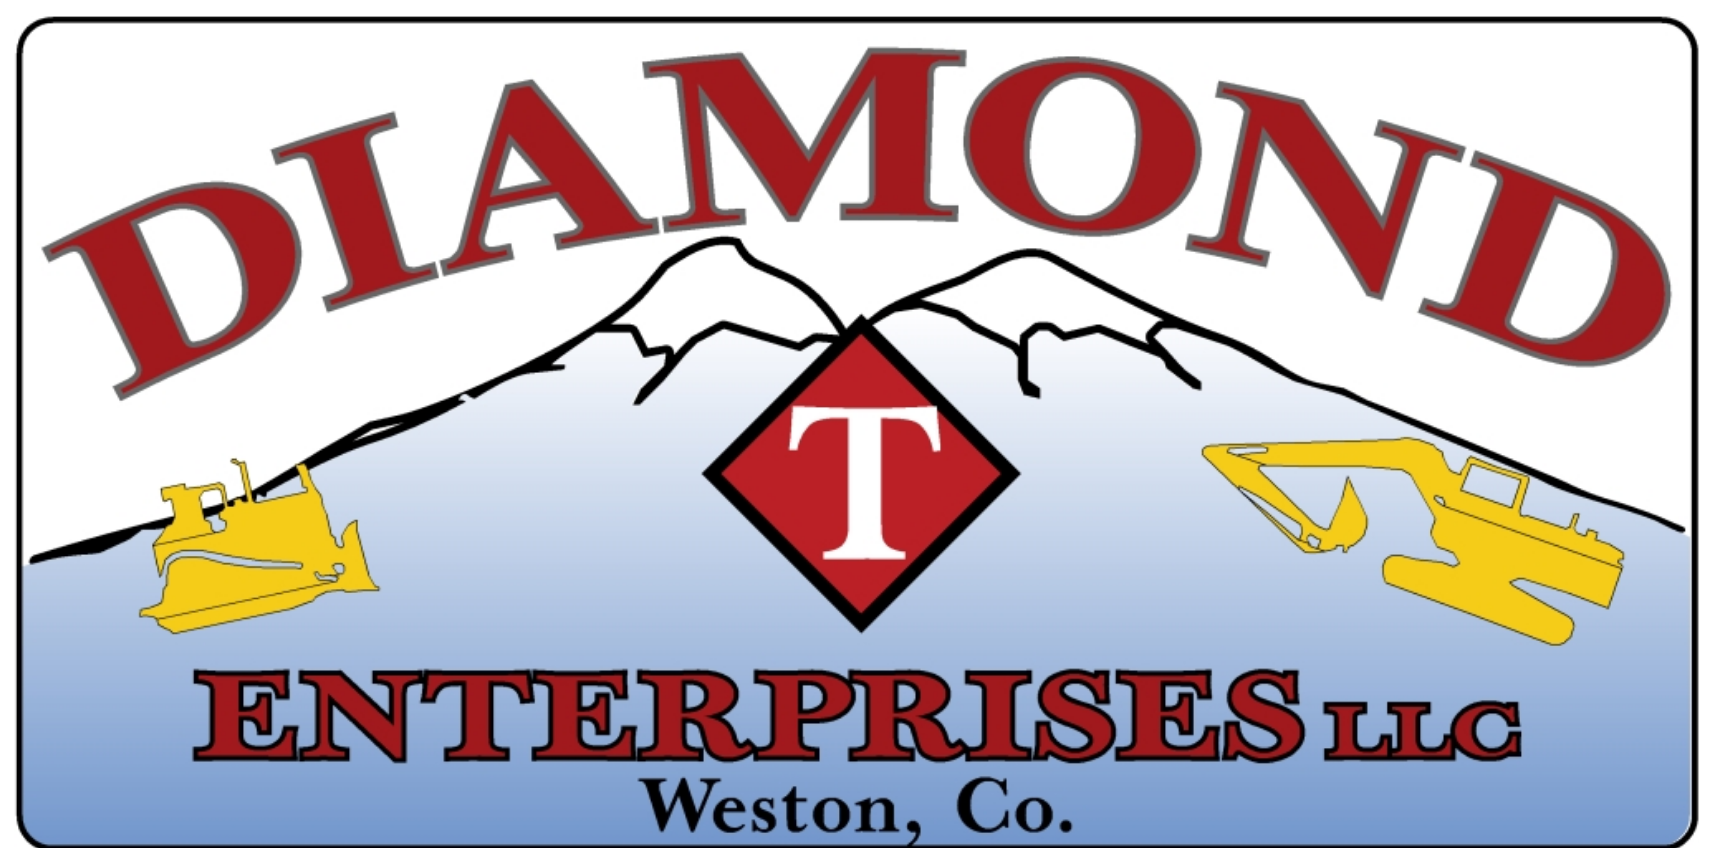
import math
import cairo


def paste(ctx, path, x, y, w, h):
	ctx.save()
	ctx.set_source_surface(cairo.ImageSurface.create_from_png(path), x, y)
	ctx.rectangle(x, y, w, h)
	ctx.fill()
	ctx.restore()

def draw(ctx):
	ctx.set_source_rgb(1, 1, 1)
	ctx.paint()
	paste(ctx, 'media/1.png', 14, 16, 1685, 832)


surface = cairo.ImageSurface(cairo.FORMAT_RGB24, 1715, 848)
ctx = cairo.Context(surface)
options = cairo.FontOptions()
options.set_hint_metrics(cairo.HINT_METRICS_OFF)
options.set_hint_style(cairo.HINT_STYLE_NONE)
ctx.set_font_options(options)
ctx.set_miter_limit(4)
draw(ctx)
surface.write_to_png('image.png')
